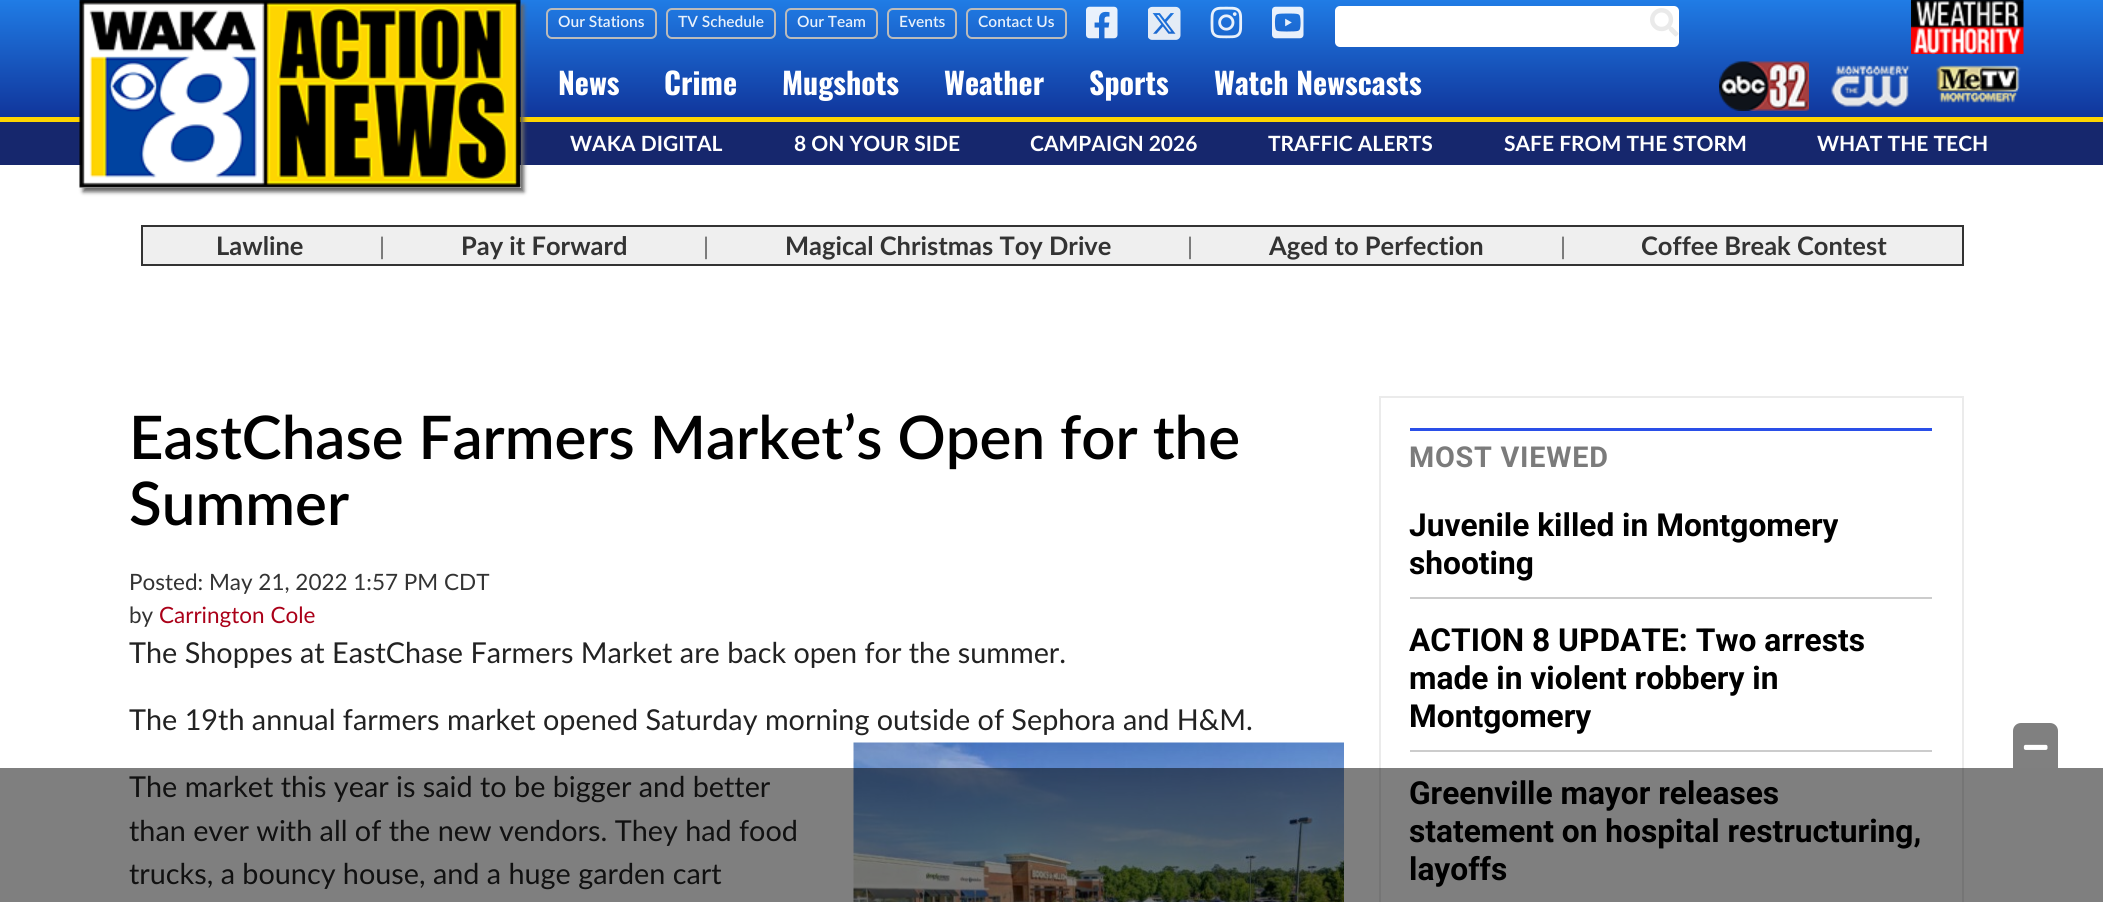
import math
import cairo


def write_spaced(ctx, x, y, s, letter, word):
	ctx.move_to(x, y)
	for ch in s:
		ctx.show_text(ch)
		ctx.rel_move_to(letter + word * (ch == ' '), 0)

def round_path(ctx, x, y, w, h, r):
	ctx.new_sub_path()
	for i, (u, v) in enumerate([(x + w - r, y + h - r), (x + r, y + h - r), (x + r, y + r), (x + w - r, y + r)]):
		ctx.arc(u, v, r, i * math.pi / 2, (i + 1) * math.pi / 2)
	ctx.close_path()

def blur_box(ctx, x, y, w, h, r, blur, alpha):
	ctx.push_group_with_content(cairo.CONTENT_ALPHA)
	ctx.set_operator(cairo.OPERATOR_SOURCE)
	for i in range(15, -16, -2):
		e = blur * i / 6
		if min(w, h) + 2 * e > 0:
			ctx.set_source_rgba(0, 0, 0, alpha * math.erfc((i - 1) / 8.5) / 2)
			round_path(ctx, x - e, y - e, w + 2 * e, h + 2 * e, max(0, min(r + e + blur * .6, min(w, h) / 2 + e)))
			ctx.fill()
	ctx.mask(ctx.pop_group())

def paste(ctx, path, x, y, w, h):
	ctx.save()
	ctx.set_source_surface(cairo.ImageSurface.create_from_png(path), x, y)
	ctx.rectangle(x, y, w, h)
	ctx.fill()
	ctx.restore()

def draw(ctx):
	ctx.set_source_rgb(1, 1, 1)
	ctx.paint()
	gradient = cairo.LinearGradient(1052, 0, 1052, 165)
	gradient.add_color_stop_rgba(0, 0.125, 0.486, 0.898, 1)
	gradient.add_color_stop_rgba(0.71, 0.063, 0.208, 0.608, 1)
	gradient.add_color_stop_rgba(0.71, 0.996, 0.835, 0.004, 1)
	gradient.add_color_stop_rgba(0.74, 0.996, 0.835, 0.004, 1)
	gradient.add_color_stop_rgba(0.74, 0.086, 0.153, 0.427, 1)
	gradient.add_color_stop_rgba(1, 0.086, 0.153, 0.427, 1)
	ctx.set_source(gradient)
	ctx.rectangle(0, 0, 2103, 165)
	ctx.fill()
	ctx.save()
	ctx.set_fill_rule(cairo.FILL_RULE_EVEN_ODD)
	ctx.new_path()
	ctx.move_to(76, 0)
	ctx.line_to(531, 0)
	ctx.line_to(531, 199)
	ctx.line_to(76, 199)
	ctx.close_path()
	ctx.move_to(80, 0)
	ctx.line_to(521, 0)
	ctx.line_to(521, 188)
	ctx.line_to(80, 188)
	ctx.close_path()
	ctx.clip()
	ctx.set_source_rgb(0.4, 0.4, 0.4)
	blur_box(ctx, 83, 5, 441, 187, 0, 2, 1)
	ctx.restore()
	paste(ctx, 'media/1.png', 79, 0, 442, 188)
	round_path(ctx, 547, 9, 109, 29, 5)
	ctx.set_source_rgb(0.733, 0.733, 0.733)
	ctx.stroke()
	ctx.select_font_face('Lato SemiBold')
	ctx.set_font_size(15.5)
	ctx.set_source_rgb(0.91, 0.945, 0.984)
	ctx.move_to(558, 27)
	ctx.show_text('Our Stations')
	round_path(ctx, 667, 9, 108, 29, 5)
	ctx.set_source_rgb(0.733, 0.733, 0.733)
	ctx.stroke()
	ctx.set_source_rgb(0.91, 0.945, 0.984)
	ctx.move_to(678, 27)
	ctx.show_text('TV Schedule')
	round_path(ctx, 786, 9, 91, 29, 5)
	ctx.set_source_rgb(0.733, 0.733, 0.733)
	ctx.stroke()
	ctx.set_source_rgb(0.91, 0.945, 0.984)
	ctx.move_to(797, 27)
	ctx.show_text('Our Team')
	round_path(ctx, 888, 9, 68, 29, 5)
	ctx.set_source_rgb(0.733, 0.733, 0.733)
	ctx.stroke()
	ctx.set_source_rgb(0.91, 0.945, 0.984)
	ctx.move_to(899, 27)
	ctx.show_text('Events')
	round_path(ctx, 967, 9, 99, 29, 5)
	ctx.set_source_rgb(0.733, 0.733, 0.733)
	ctx.stroke()
	ctx.set_source_rgb(0.91, 0.945, 0.984)
	ctx.move_to(978, 27)
	ctx.show_text('Contact Us')
	paste(ctx, 'media/2.png', 1086, 6, 32, 33)
	paste(ctx, 'media/3.png', 1148, 6, 33, 34)
	paste(ctx, 'media/4.png', 1210, 6, 33, 33)
	paste(ctx, 'media/5.png', 1272, 6, 32, 33)
	ctx.set_source_rgb(1, 1, 1)
	round_path(ctx, 1335, 6, 344, 41, 5)
	ctx.fill()
	paste(ctx, 'media/6.png', 1650, 8, 29, 29)
	paste(ctx, 'media/7.png', 1911, 0, 113, 54)
	paste(ctx, 'media/8.png', 1719, 61, 90, 50)
	paste(ctx, 'media/9.png', 1831, 65, 79, 42)
	paste(ctx, 'media/10.png', 1936, 65, 85, 38)
	ctx.select_font_face('Oswald', cairo.FONT_SLANT_NORMAL, cairo.FONT_WEIGHT_BOLD)
	ctx.set_font_size(30)
	for x, y, s in [
		(558, 95, 'News'),
		(664, 95, 'Crime'),
		(782, 95, 'Mugshots'),
		(944, 95, 'Weather'),
		(1089, 95, 'Sports'),
		(1214, 95, 'Watch Newscasts'),
	]:
		ctx.move_to(x, y)
		ctx.show_text(s)
	ctx.select_font_face('Lato', cairo.FONT_SLANT_NORMAL, cairo.FONT_WEIGHT_BOLD)
	ctx.set_font_size(21)
	for x, y, s in [
		(570, 151, 'WAKA DIGITAL'),
		(794, 151, '8 ON YOUR SIDE'),
		(1030, 151, 'CAMPAIGN 2026'),
		(1268, 151, 'TRAFFIC ALERTS'),
		(1504, 151, 'SAFE FROM THE STORM'),
		(1817, 151, 'WHAT THE TECH'),
	]:
		ctx.move_to(x, y)
		ctx.show_text(s)
	ctx.set_source_rgb(0.937, 0.937, 0.937)
	ctx.rectangle(142, 226, 1821, 39)
	ctx.fill_preserve()
	ctx.set_source_rgb(0.2, 0.2, 0.2)
	ctx.stroke()
	ctx.set_font_size(25.5)
	ctx.move_to(216, 255)
	ctx.show_text('Lawline')
	ctx.select_font_face('Lato')
	ctx.set_font_size(24)
	ctx.set_source_rgb(0.4, 0.4, 0.4)
	ctx.move_to(379, 255)
	ctx.show_text('|')
	ctx.select_font_face('Lato', cairo.FONT_SLANT_NORMAL, cairo.FONT_WEIGHT_BOLD)
	ctx.set_font_size(25.5)
	ctx.set_source_rgb(0.2, 0.2, 0.2)
	ctx.move_to(461, 255)
	ctx.show_text('Pay it Forward')
	ctx.select_font_face('Lato')
	ctx.set_font_size(24)
	ctx.set_source_rgb(0.4, 0.4, 0.4)
	ctx.move_to(703, 255)
	ctx.show_text('|')
	ctx.select_font_face('Lato', cairo.FONT_SLANT_NORMAL, cairo.FONT_WEIGHT_BOLD)
	ctx.set_font_size(25.5)
	ctx.set_source_rgb(0.2, 0.2, 0.2)
	ctx.move_to(785, 255)
	ctx.show_text('Magical Christmas Toy Drive')
	ctx.select_font_face('Lato')
	ctx.set_font_size(24)
	ctx.set_source_rgb(0.4, 0.4, 0.4)
	ctx.move_to(1187, 255)
	ctx.show_text('|')
	ctx.select_font_face('Lato', cairo.FONT_SLANT_NORMAL, cairo.FONT_WEIGHT_BOLD)
	ctx.set_font_size(25.5)
	ctx.set_source_rgb(0.2, 0.2, 0.2)
	ctx.move_to(1269, 255)
	ctx.show_text('Aged to Perfection')
	ctx.select_font_face('Lato')
	ctx.set_font_size(24)
	ctx.set_source_rgb(0.4, 0.4, 0.4)
	ctx.move_to(1560, 255)
	ctx.show_text('|')
	ctx.select_font_face('Lato', cairo.FONT_SLANT_NORMAL, cairo.FONT_WEIGHT_BOLD)
	ctx.set_font_size(25.5)
	ctx.set_source_rgb(0.2, 0.2, 0.2)
	ctx.move_to(1641, 255)
	ctx.show_text('Coffee Break Contest')
	paste(ctx, 'media/12.png', 853, 742, 491, 160)
	ctx.select_font_face('Lato')
	ctx.set_font_size(28.8)
	ctx.set_source_rgb(0.133, 0.133, 0.133)
	for x, y, s in [
		(129, 797, 'The market this year is said to be bigger and better'),
		(129, 841, 'than ever with all of the new vendors. They had food'),
		(129, 884, 'trucks, a bouncy house, and a huge garden cart'),
	]:
		ctx.move_to(x, y)
		ctx.show_text(s)
	ctx.rectangle(1380, 397, 583, 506)
	ctx.set_source_rgb(0.918, 0.918, 0.918)
	ctx.stroke()
	ctx.select_font_face('Roboto', cairo.FONT_SLANT_NORMAL, cairo.FONT_WEIGHT_BOLD)
	ctx.set_font_size(31.7)
	ctx.set_source_rgb(0, 0, 0)
	for x, y, s in [
		(1409, 804, 'Greenville mayor releases'),
		(1409, 842, 'statement on hospital restructuring,'),
		(1409, 880, 'layoffs'),
	]:
		ctx.move_to(x, y)
		ctx.show_text(s)
	ctx.set_source_rgba(0, 0, 0, 0.5)
	ctx.rectangle(0, 768, 2103, 134)
	ctx.fill()
	ctx.set_source_rgb(0.502, 0.502, 0.502)
	ctx.new_path()
	ctx.move_to(2021, 723)
	ctx.line_to(2050, 723)
	ctx.curve_to(2054.5, 723, 2058, 726.5, 2058, 731)
	ctx.line_to(2058, 768)
	ctx.line_to(2013, 768)
	ctx.line_to(2013, 731)
	ctx.curve_to(2013, 726.5, 2016.5, 723, 2021, 723)
	ctx.close_path()
	ctx.fill()
	paste(ctx, 'media/11.png', 2023, 744, 25, 6)
	ctx.select_font_face('Lato SemiBold')
	ctx.set_font_size(60)
	ctx.set_source_rgb(0, 0, 0)
	ctx.move_to(129, 459)
	ctx.show_text('EastChase Farmers Market’s Open for the')
	ctx.move_to(129, 525)
	ctx.show_text('Summer')
	ctx.select_font_face('Lato')
	ctx.set_font_size(22.5)
	ctx.set_source_rgb(0.2, 0.2, 0.2)
	ctx.move_to(129, 590)
	ctx.show_text('Posted: May 21, 2022 1:57 PM CDT')
	ctx.move_to(129, 623)
	ctx.show_text('by')
	ctx.set_source_rgb(0.667, 0, 0.094)
	ctx.move_to(159, 623)
	ctx.show_text('Carrington Cole')
	ctx.set_font_size(28.8)
	ctx.set_source_rgb(0.133, 0.133, 0.133)
	ctx.move_to(129, 663)
	ctx.show_text('The Shoppes at EastChase Farmers Market are back open for the summer.')
	ctx.move_to(129, 730)
	ctx.show_text('The 19th annual farmers market opened Saturday morning outside of Sephora and H&M.')
	ctx.set_source_rgb(0.165, 0.31, 0.91)
	ctx.rectangle(1410, 428, 522, 3)
	ctx.fill()
	ctx.select_font_face('Roboto', cairo.FONT_SLANT_NORMAL, cairo.FONT_WEIGHT_BOLD)
	ctx.set_source_rgb(0.482, 0.482, 0.482)
	write_spaced(ctx, 1409, 467, 'MOST VIEWED', 0.75, 0)
	ctx.set_source_rgb(0.8, 0.8, 0.8)
	ctx.rectangle(1410, 597, 522, 2)
	ctx.fill()
	ctx.set_font_size(31.7)
	ctx.set_source_rgb(0, 0, 0)
	ctx.move_to(1409, 536)
	ctx.show_text('Juvenile killed in Montgomery')
	ctx.move_to(1409, 574)
	ctx.show_text('shooting')
	ctx.set_source_rgb(0.8, 0.8, 0.8)
	ctx.rectangle(1410, 750, 522, 2)
	ctx.fill()
	ctx.set_source_rgb(0, 0, 0)
	for x, y, s in [
		(1409, 651, 'ACTION 8 UPDATE: Two arrests'),
		(1409, 689, 'made in violent robbery in'),
		(1409, 727, 'Montgomery'),
	]:
		ctx.move_to(x, y)
		ctx.show_text(s)


surface = cairo.ImageSurface(cairo.FORMAT_RGB24, 2103, 902)
ctx = cairo.Context(surface)
options = cairo.FontOptions()
options.set_hint_metrics(cairo.HINT_METRICS_OFF)
options.set_hint_style(cairo.HINT_STYLE_NONE)
ctx.set_font_options(options)
ctx.set_miter_limit(4)
draw(ctx)
surface.write_to_png('image.png')
